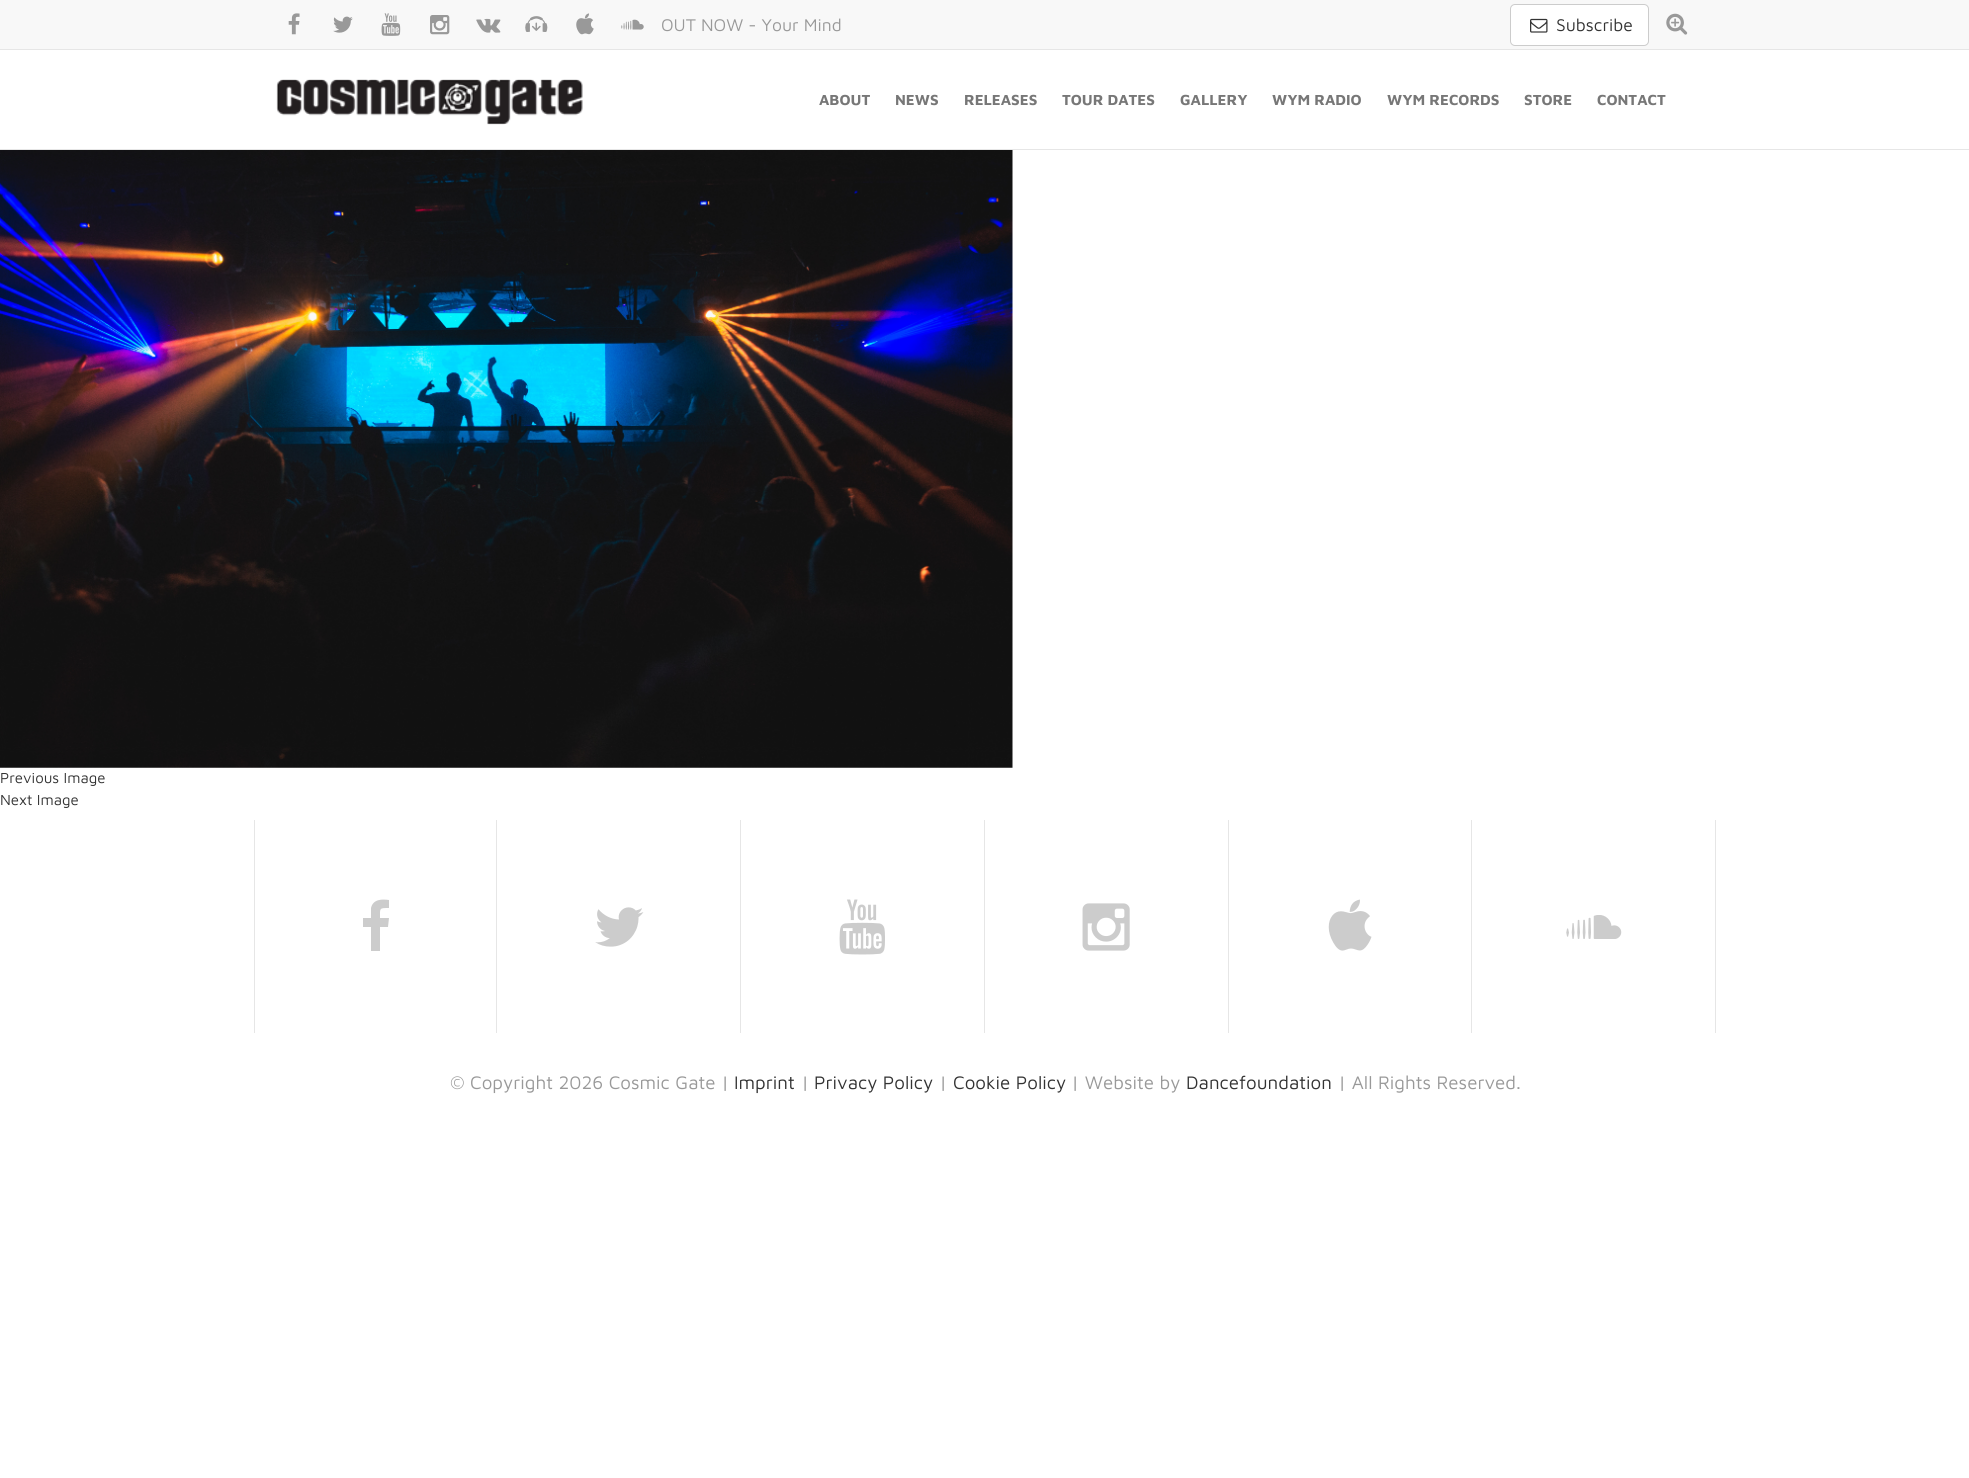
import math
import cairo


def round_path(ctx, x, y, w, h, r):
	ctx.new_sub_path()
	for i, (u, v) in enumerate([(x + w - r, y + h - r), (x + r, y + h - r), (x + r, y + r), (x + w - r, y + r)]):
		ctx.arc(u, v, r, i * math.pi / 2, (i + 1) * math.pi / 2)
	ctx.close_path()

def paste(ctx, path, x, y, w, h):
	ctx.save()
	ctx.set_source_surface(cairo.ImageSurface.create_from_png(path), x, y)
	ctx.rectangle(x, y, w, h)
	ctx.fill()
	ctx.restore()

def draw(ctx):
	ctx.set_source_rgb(1, 1, 1)
	ctx.paint()
	ctx.set_source_rgb(0.902, 0.902, 0.902)
	ctx.rectangle(0, 149, 1969, 1)
	ctx.fill()
	ctx.set_source_rgb(0.969, 0.969, 0.969)
	ctx.rectangle(0, 0, 1969, 49)
	ctx.fill()
	ctx.set_source_rgb(0.902, 0.902, 0.902)
	ctx.rectangle(0, 49, 1969, 1)
	ctx.fill()
	paste(ctx, 'media/1.png', 288, 13, 12, 22)
	paste(ctx, 'media/2.png', 333, 16, 20, 17)
	paste(ctx, 'media/3.png', 381, 13, 20, 23)
	paste(ctx, 'media/4.png', 430, 15, 20, 20)
	paste(ctx, 'media/5.png', 476, 18, 25, 15)
	paste(ctx, 'media/6.png', 525, 16, 23, 16)
	paste(ctx, 'media/7.png', 576, 13, 18, 22)
	paste(ctx, 'media/8.png', 621, 19, 23, 11)
	ctx.select_font_face('Maven Pro')
	ctx.set_font_size(17.5)
	ctx.set_source_rgb(0.6, 0.6, 0.6)
	ctx.move_to(661, 31)
	ctx.show_text('OUT NOW - Your Mind')
	ctx.set_source_rgb(1, 1, 1)
	round_path(ctx, 1510.5, 4.5, 138, 41, 4.5)
	ctx.fill_preserve()
	ctx.set_source_rgb(0.8, 0.8, 0.8)
	ctx.set_line_width(1)
	ctx.stroke()
	paste(ctx, 'media/9.png', 1530, 18, 18, 15)
	ctx.set_source_rgb(0.2, 0.2, 0.2)
	ctx.move_to(1556, 31)
	ctx.show_text('Subscribe')
	paste(ctx, 'media/10.png', 1666, 13, 22, 22)
	paste(ctx, 'media/11.png', 276, 79, 307, 46)
	ctx.select_font_face('Maven Pro', cairo.FONT_SLANT_NORMAL, cairo.FONT_WEIGHT_BOLD)
	ctx.set_font_size(15)
	ctx.set_source_rgb(0.467, 0.467, 0.467)
	for x, y, s in [
		(819, 105, 'ABOUT'),
		(895, 105, 'NEWS'),
		(964, 105, 'RELEASES'),
		(1062, 105, 'TOUR DATES'),
		(1180, 105, 'GALLERY'),
		(1272, 105, 'WYM RADIO'),
		(1387, 105, 'WYM RECORDS'),
		(1524, 105, 'STORE'),
		(1597, 105, 'CONTACT'),
	]:
		ctx.move_to(x, y)
		ctx.show_text(s)
	paste(ctx, 'media/12.png', 0, 150, 1013, 618)
	ctx.select_font_face('Maven Pro')
	ctx.set_source_rgb(0.2, 0.2, 0.2)
	ctx.move_to(0, 783)
	ctx.show_text('Previous Image')
	ctx.move_to(0, 805)
	ctx.show_text('Next Image')
	ctx.set_source_rgb(0.902, 0.902, 0.902)
	ctx.rectangle(496, 820, 1, 213)
	ctx.fill()
	ctx.rectangle(254, 820, 1, 213)
	ctx.fill()
	ctx.set_source_rgb(0.8, 0.8, 0.8)
	ctx.new_path()
	ctx.move_to(389, 900)
	ctx.line_to(389, 908)
	ctx.curve_to(379, 908, 380, 908, 380, 918)
	ctx.line_to(389, 918)
	ctx.line_to(388, 927)
	ctx.line_to(380, 927)
	ctx.line_to(380, 951)
	ctx.line_to(371, 951)
	ctx.line_to(371, 927)
	ctx.line_to(363, 927)
	ctx.line_to(363, 918)
	ctx.line_to(371, 918)
	ctx.line_to(371, 908)
	ctx.curve_to(373, 899, 382, 899, 389, 900)
	ctx.close_path()
	ctx.fill()
	ctx.set_source_rgb(0.902, 0.902, 0.902)
	ctx.rectangle(740, 820, 1, 213)
	ctx.fill()
	paste(ctx, 'media/13.png', 595, 907, 49, 40)
	ctx.rectangle(984, 820, 1, 213)
	ctx.fill()
	paste(ctx, 'media/14.png', 839, 899, 46, 56)
	ctx.rectangle(1228, 820, 1, 213)
	ctx.fill()
	paste(ctx, 'media/15.png', 1082, 903, 48, 48)
	ctx.rectangle(1471, 820, 1, 213)
	ctx.fill()
	paste(ctx, 'media/16.png', 1328, 899, 44, 52)
	ctx.rectangle(1715, 820, 1, 213)
	ctx.fill()
	paste(ctx, 'media/17.png', 1566, 915, 56, 24)
	ctx.set_font_size(18.75)
	ctx.set_source_rgb(0.6, 0.6, 0.6)
	ctx.move_to(450, 1089)
	ctx.show_text('© Copyright 2026 Cosmic Gate |')
	ctx.set_source_rgb(0.2, 0.2, 0.2)
	ctx.move_to(734, 1089)
	ctx.show_text('Imprint')
	ctx.set_source_rgb(0.6, 0.6, 0.6)
	ctx.move_to(801, 1089)
	ctx.show_text('|')
	ctx.set_source_rgb(0.2, 0.2, 0.2)
	ctx.move_to(814, 1089)
	ctx.show_text('Privacy Policy')
	ctx.set_source_rgb(0.6, 0.6, 0.6)
	ctx.move_to(939, 1089)
	ctx.show_text('|')
	ctx.set_source_rgb(0.2, 0.2, 0.2)
	ctx.move_to(953, 1089)
	ctx.show_text('Cookie Policy')
	ctx.set_source_rgb(0.6, 0.6, 0.6)
	ctx.move_to(1071, 1089)
	ctx.show_text('| Website by')
	ctx.set_source_rgb(0.2, 0.2, 0.2)
	ctx.move_to(1186, 1089)
	ctx.show_text('Dancefoundation')
	ctx.set_source_rgb(0.6, 0.6, 0.6)
	ctx.move_to(1338, 1089)
	ctx.show_text('| All Rights Reserved.')


surface = cairo.ImageSurface(cairo.FORMAT_RGB24, 1969, 1478)
ctx = cairo.Context(surface)
options = cairo.FontOptions()
options.set_hint_metrics(cairo.HINT_METRICS_OFF)
options.set_hint_style(cairo.HINT_STYLE_NONE)
ctx.set_font_options(options)
ctx.set_miter_limit(4)
draw(ctx)
surface.write_to_png('image.png')
